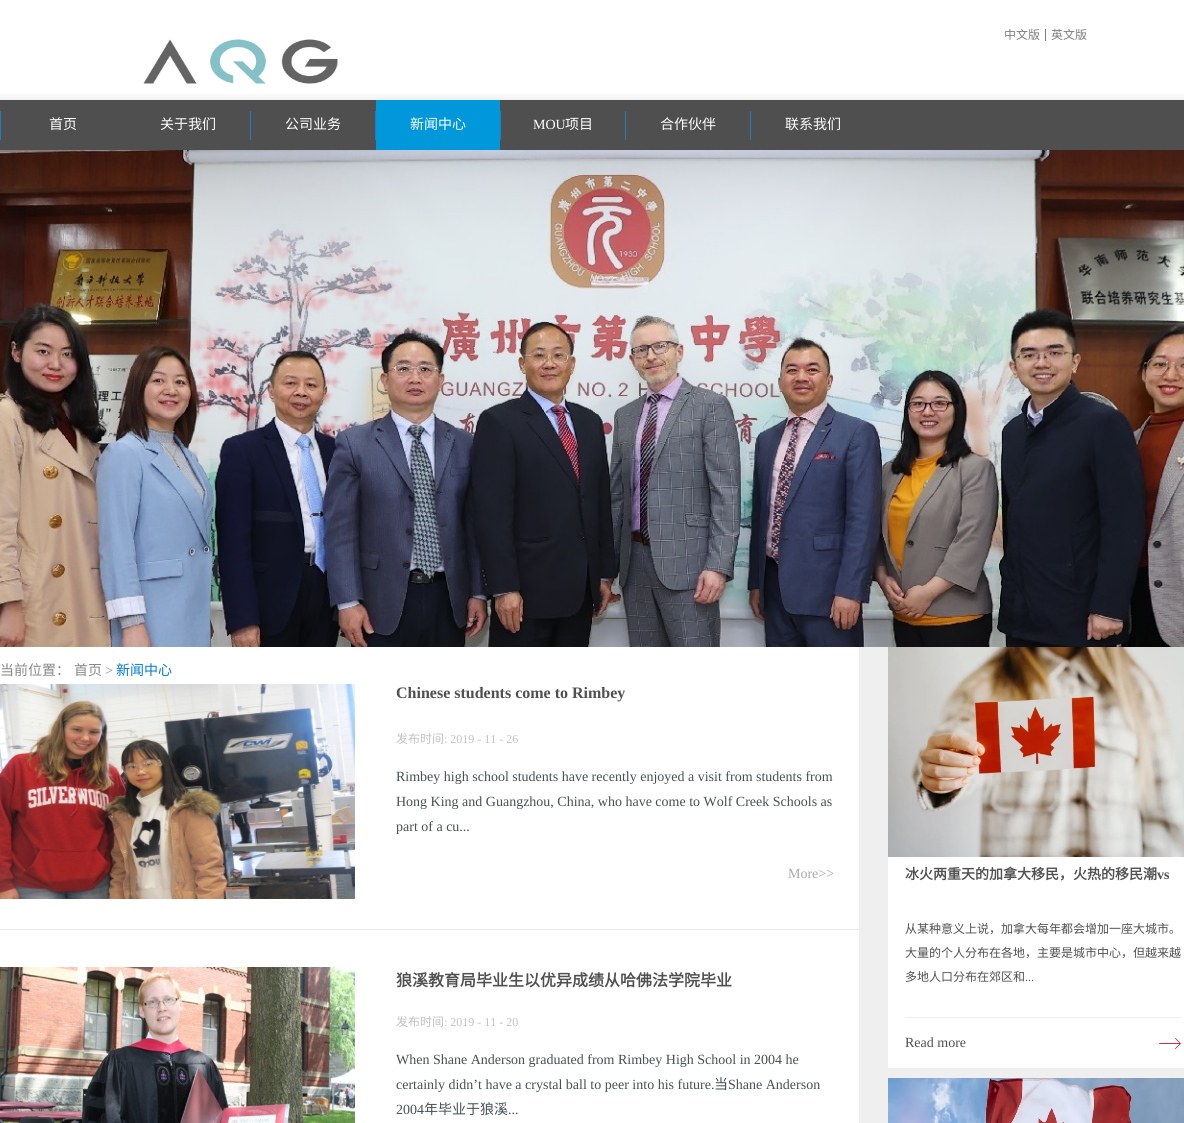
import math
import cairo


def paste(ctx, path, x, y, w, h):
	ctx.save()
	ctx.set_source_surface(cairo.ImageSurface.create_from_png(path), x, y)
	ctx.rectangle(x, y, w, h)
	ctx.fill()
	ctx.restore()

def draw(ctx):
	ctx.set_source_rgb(1, 1, 1)
	ctx.paint()
	paste(ctx, 'media/1.png', 0, 94, 1184, 6)
	ctx.set_source_rgb(0.49, 0.49, 0.49)
	ctx.rectangle(1045, 29, 1, 12)
	ctx.fill()
	ctx.select_font_face('Noto Sans CJK SC')
	ctx.set_font_size(12)
	ctx.move_to(1004, 39)
	ctx.show_text('中文版')
	ctx.move_to(1051, 39)
	ctx.show_text('英文版')
	paste(ctx, 'media/2.png', 143, 38, 195, 47)
	ctx.set_source_rgb(0.31, 0.31, 0.31)
	ctx.rectangle(0, 100, 1184, 50)
	ctx.fill()
	ctx.set_source_rgb(0.149, 0.482, 0.749)
	ctx.rectangle(0, 111, 1, 29)
	ctx.fill()
	ctx.set_font_size(14)
	ctx.set_source_rgb(1, 1, 1)
	ctx.move_to(49, 129)
	ctx.show_text('首页')
	ctx.move_to(160, 129)
	ctx.show_text('关于我们')
	ctx.set_source_rgb(0.149, 0.482, 0.749)
	ctx.rectangle(250, 111, 1, 29)
	ctx.fill()
	ctx.set_source_rgb(1, 1, 1)
	ctx.move_to(285, 129)
	ctx.show_text('公司业务')
	ctx.set_source_rgb(0.149, 0.482, 0.749)
	ctx.rectangle(375, 111, 1, 29)
	ctx.fill()
	ctx.set_source_rgb(0, 0.592, 0.859)
	ctx.rectangle(376, 100, 124, 50)
	ctx.fill()
	ctx.set_source_rgb(1, 1, 1)
	ctx.move_to(410, 129)
	ctx.show_text('新闻中心')
	ctx.set_source_rgb(0.149, 0.482, 0.749)
	ctx.rectangle(500, 111, 1, 29)
	ctx.fill()
	ctx.select_font_face('Liberation Serif')
	ctx.set_source_rgb(1, 1, 1)
	ctx.move_to(533, 129)
	ctx.show_text('MOU')
	ctx.select_font_face('Noto Sans CJK SC')
	ctx.move_to(565, 129)
	ctx.show_text('项目')
	ctx.set_source_rgb(0.149, 0.482, 0.749)
	ctx.rectangle(625, 111, 1, 29)
	ctx.fill()
	ctx.set_source_rgb(1, 1, 1)
	ctx.move_to(660, 129)
	ctx.show_text('合作伙伴')
	ctx.set_source_rgb(0.149, 0.482, 0.749)
	ctx.rectangle(750, 111, 1, 29)
	ctx.fill()
	ctx.set_source_rgb(1, 1, 1)
	ctx.move_to(785, 129)
	ctx.show_text('联系我们')
	paste(ctx, 'media/3.png', 0, 150, 1184, 497)
	ctx.set_source_rgb(0.937, 0.937, 0.937)
	ctx.rectangle(859, 647, 325, 476)
	ctx.fill()
	ctx.set_source_rgb(0.533, 0.533, 0.533)
	ctx.move_to(0, 675)
	ctx.show_text('当前位置：')
	ctx.move_to(74, 675)
	ctx.show_text('首页')
	ctx.select_font_face('Liberation Serif')
	ctx.move_to(105, 675)
	ctx.show_text('>')
	ctx.select_font_face('Noto Sans CJK SC')
	ctx.set_source_rgb(0.008, 0.482, 0.839)
	ctx.move_to(116, 675)
	ctx.show_text('新闻中心')
	ctx.set_source_rgb(0.918, 0.918, 0.918)
	ctx.rectangle(0, 929, 859, 1)
	ctx.fill()
	paste(ctx, 'media/4.png', 0, 684, 355, 215)
	ctx.select_font_face('Liberation Serif', cairo.FONT_SLANT_NORMAL, cairo.FONT_WEIGHT_BOLD)
	ctx.set_font_size(16)
	ctx.set_source_rgb(0.318, 0.314, 0.314)
	ctx.move_to(396, 698)
	ctx.show_text('Chinese students come to Rimbey')
	ctx.select_font_face('Noto Sans CJK SC')
	ctx.set_font_size(12)
	ctx.set_source_rgb(0.769, 0.757, 0.757)
	ctx.move_to(396, 743)
	ctx.show_text('发布时间')
	ctx.select_font_face('Liberation Serif')
	ctx.move_to(444, 743)
	ctx.show_text(': 2019 - 11 - 26')
	ctx.set_font_size(14)
	ctx.set_source_rgb(0.278, 0.314, 0.333)
	for x, y, s in [
		(396, 781, 'Rimbey high school students have recently enjoyed a visit from students from'),
		(396, 806, 'Hong King and Guangzhou, China, who have come to Wolf Creek Schools as'),
		(396, 831, 'part of a cu...'),
	]:
		ctx.move_to(x, y)
		ctx.show_text(s)
	ctx.set_source_rgb(0.663, 0.663, 0.671)
	ctx.move_to(788, 878)
	ctx.show_text('More>>')
	paste(ctx, 'media/5.png', 0, 967, 355, 156)
	ctx.select_font_face('Noto Sans CJK SC', cairo.FONT_SLANT_NORMAL, cairo.FONT_WEIGHT_BOLD)
	ctx.set_font_size(16)
	ctx.set_source_rgb(0.318, 0.314, 0.314)
	ctx.move_to(396, 986)
	ctx.show_text('狼溪教育局毕业生以优异成绩从哈佛法学院毕业')
	ctx.select_font_face('Noto Sans CJK SC')
	ctx.set_font_size(12)
	ctx.set_source_rgb(0.769, 0.757, 0.757)
	ctx.move_to(396, 1026)
	ctx.show_text('发布时间')
	ctx.select_font_face('Liberation Serif')
	ctx.move_to(444, 1026)
	ctx.show_text(': 2019 - 11 - 20')
	ctx.set_font_size(14)
	ctx.set_source_rgb(0.278, 0.314, 0.333)
	ctx.move_to(396, 1064)
	ctx.show_text('When Shane Anderson graduated from Rimbey High School in 2004 he')
	ctx.move_to(396, 1089)
	ctx.show_text('certainly didn’t have a crystal ball to peer into his future.')
	ctx.select_font_face('Noto Sans CJK SC')
	ctx.move_to(714, 1089)
	ctx.show_text('当')
	ctx.select_font_face('Liberation Serif')
	ctx.move_to(728, 1089)
	ctx.show_text('Shane Anderson')
	ctx.move_to(396, 1114)
	ctx.show_text('2004')
	ctx.select_font_face('Noto Sans CJK SC')
	ctx.move_to(424, 1114)
	ctx.show_text('年毕业于狼溪')
	ctx.select_font_face('Liberation Serif')
	ctx.move_to(508, 1114)
	ctx.show_text('...')
	paste(ctx, 'media/6.png', 888, 647, 296, 210)
	ctx.set_source_rgb(1, 1, 1)
	ctx.rectangle(888, 857, 296, 211)
	ctx.fill()
	ctx.select_font_face('Noto Sans CJK SC', cairo.FONT_SLANT_NORMAL, cairo.FONT_WEIGHT_BOLD)
	ctx.set_source_rgb(0.318, 0.314, 0.314)
	ctx.move_to(905, 879)
	ctx.show_text('冰火两重天的加拿大移民，火热的移民潮')
	ctx.select_font_face('Liberation Serif', cairo.FONT_SLANT_NORMAL, cairo.FONT_WEIGHT_BOLD)
	ctx.move_to(1157, 879)
	ctx.show_text('vs')
	ctx.set_source_rgb(0.937, 0.937, 0.937)
	ctx.rectangle(905, 1017, 276, 1)
	ctx.fill()
	ctx.select_font_face('Noto Sans CJK SC')
	ctx.set_font_size(12)
	ctx.set_source_rgb(0.318, 0.314, 0.314)
	for x, y, s in [
		(905, 933, '从某种意义上说，加拿大每年都会增加一座大城市。'),
		(905, 957, '大量的个人分布在各地，主要是城市中心，但越来越'),
		(905, 981, '多地人口分布在郊区和'),
	]:
		ctx.move_to(x, y)
		ctx.show_text(s)
	ctx.select_font_face('Liberation Serif')
	ctx.move_to(1025, 981)
	ctx.show_text('...')
	paste(ctx, 'media/7.png', 1159, 1038, 22, 11)
	ctx.set_font_size(14)
	ctx.move_to(905, 1047)
	ctx.show_text('Read more')
	paste(ctx, 'media/8.png', 888, 1078, 296, 45)


surface = cairo.ImageSurface(cairo.FORMAT_RGB24, 1184, 1123)
ctx = cairo.Context(surface)
options = cairo.FontOptions()
options.set_hint_metrics(cairo.HINT_METRICS_OFF)
options.set_hint_style(cairo.HINT_STYLE_NONE)
ctx.set_font_options(options)
ctx.set_miter_limit(4)
draw(ctx)
surface.write_to_png('image.png')
